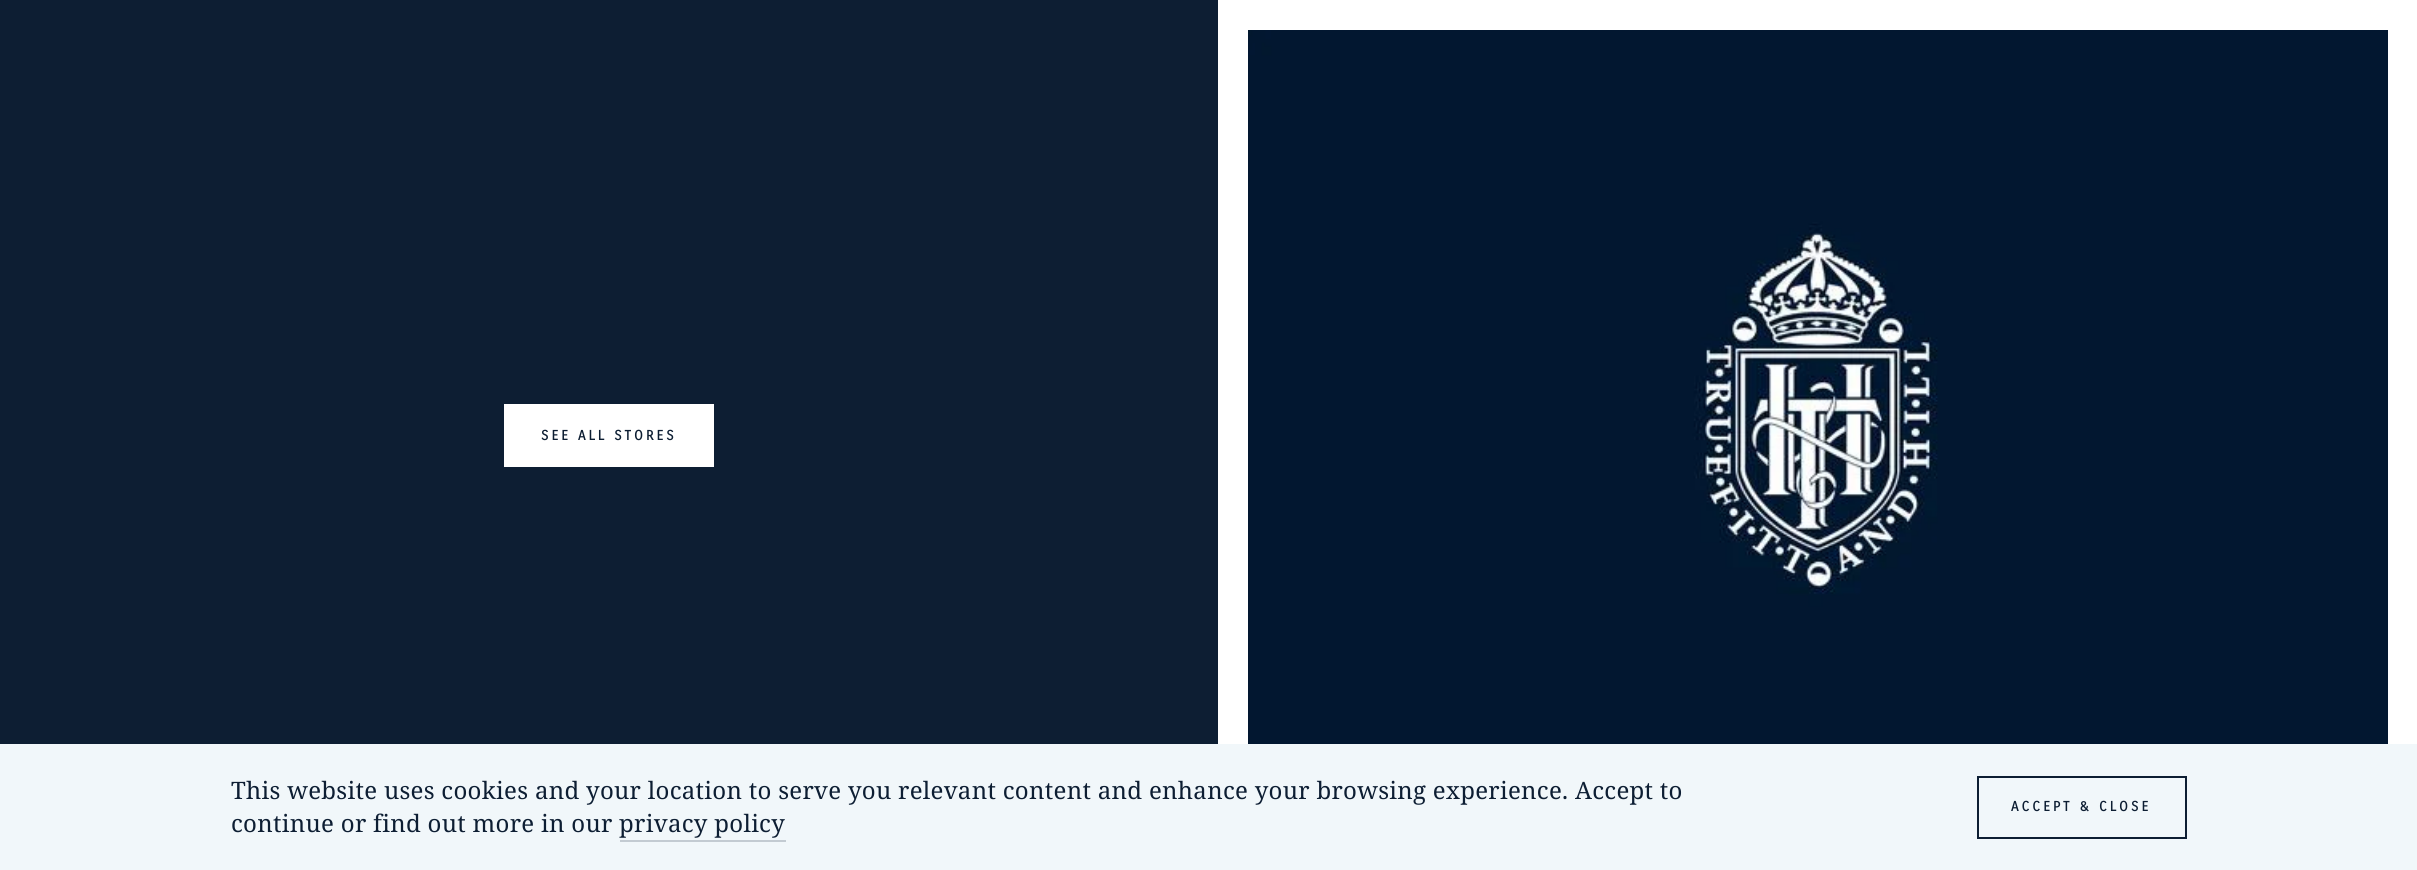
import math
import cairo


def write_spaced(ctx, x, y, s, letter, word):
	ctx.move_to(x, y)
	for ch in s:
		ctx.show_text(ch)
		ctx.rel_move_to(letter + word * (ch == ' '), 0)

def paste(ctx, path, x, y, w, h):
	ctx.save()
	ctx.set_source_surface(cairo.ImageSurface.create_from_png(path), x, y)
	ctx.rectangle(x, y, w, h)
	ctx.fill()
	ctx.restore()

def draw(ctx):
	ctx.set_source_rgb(0.051, 0.118, 0.2)
	ctx.paint()
	ctx.set_source_rgb(1, 1, 1)
	ctx.rectangle(504, 404, 210, 63)
	ctx.fill()
	ctx.select_font_face('Carrois Gothic SC', cairo.FONT_SLANT_NORMAL, cairo.FONT_WEIGHT_BOLD)
	ctx.set_font_size(13.5)
	ctx.set_source_rgb(0.051, 0.118, 0.2)
	write_spaced(ctx, 541, 440, 'SEE ALL STORES', 3, 0)
	ctx.set_source_rgb(1, 1, 1)
	ctx.rectangle(1218, 0, 1199, 744)
	ctx.fill()
	paste(ctx, 'media/1.png', 1248, 30, 1140, 714)
	ctx.set_source_rgb(0.945, 0.965, 0.98)
	ctx.rectangle(0, 744, 2417, 126)
	ctx.fill()
	ctx.select_font_face('Noto Serif')
	ctx.set_font_size(24)
	ctx.set_source_rgb(0.051, 0.118, 0.2)
	write_spaced(ctx, 231, 799, 'This website uses cookies and your location to serve you relevant content and enhance your browsing experience. Accept to', 0.3, 0)
	write_spaced(ctx, 231, 832, 'continue or find out more in our privacy policy', 0.3, 0)
	ctx.set_source_rgb(0.765, 0.796, 0.824)
	ctx.rectangle(620, 840, 166, 2)
	ctx.fill()
	ctx.rectangle(1978, 777, 208, 61)
	ctx.set_source_rgb(0.051, 0.118, 0.2)
	ctx.stroke()
	ctx.select_font_face('Carrois Gothic SC', cairo.FONT_SLANT_NORMAL, cairo.FONT_WEIGHT_BOLD)
	ctx.set_font_size(13.5)
	write_spaced(ctx, 2011, 811, 'ACCEPT & CLOSE', 3, 0)


surface = cairo.ImageSurface(cairo.FORMAT_RGB24, 2417, 870)
ctx = cairo.Context(surface)
options = cairo.FontOptions()
options.set_hint_metrics(cairo.HINT_METRICS_OFF)
options.set_hint_style(cairo.HINT_STYLE_NONE)
ctx.set_font_options(options)
ctx.set_miter_limit(4)
draw(ctx)
surface.write_to_png('image.png')
